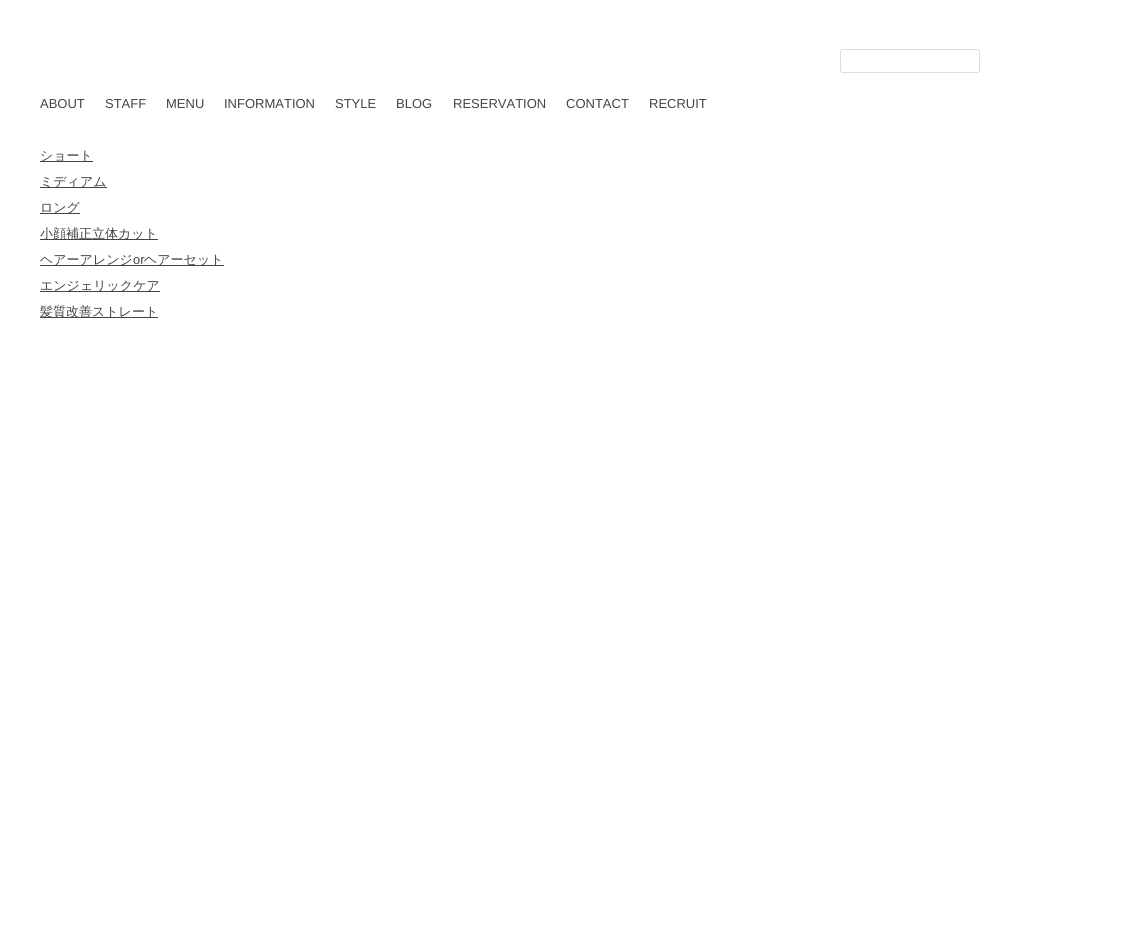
import math
import cairo


def round_path(ctx, x, y, w, h, r):
	ctx.new_sub_path()
	for i, (u, v) in enumerate([(x + w - r, y + h - r), (x + r, y + h - r), (x + r, y + r), (x + w - r, y + r)]):
		ctx.arc(u, v, r, i * math.pi / 2, (i + 1) * math.pi / 2)
	ctx.close_path()

def draw(ctx):
	ctx.set_source_rgb(1, 1, 1)
	ctx.paint()
	round_path(ctx, 840.5, 49.5, 139, 23, 2.5)
	ctx.set_source_rgb(0.867, 0.867, 0.867)
	ctx.set_line_width(1)
	ctx.stroke()
	ctx.select_font_face('Liberation Sans')
	ctx.set_font_size(13)
	ctx.set_source_rgb(0.267, 0.267, 0.267)
	for x, y, s in [
		(40, 108, 'ABOUT'),
		(105, 108, 'STAFF'),
		(166, 108, 'MENU'),
		(224, 108, 'INFORMATION'),
		(335, 108, 'STYLE'),
		(396, 108, 'BLOG'),
		(453, 108, 'RESERVATION'),
		(566, 108, 'CONTACT'),
		(649, 108, 'RECRUIT'),
	]:
		ctx.move_to(x, y)
		ctx.show_text(s)
	ctx.rectangle(40, 161, 53, 1)
	ctx.fill()
	ctx.select_font_face('WenQuanYi Zen Hei Medium')
	ctx.move_to(40, 160)
	ctx.show_text('ショート')
	ctx.rectangle(40, 187, 67, 1)
	ctx.fill()
	ctx.move_to(40, 186)
	ctx.show_text('ミディアム')
	ctx.rectangle(40, 213, 40, 1)
	ctx.fill()
	ctx.move_to(40, 212)
	ctx.show_text('ロング')
	ctx.rectangle(40, 239, 118, 1)
	ctx.fill()
	ctx.move_to(40, 238)
	ctx.show_text('小顔補正立体カット')
	ctx.rectangle(40, 265, 184, 1)
	ctx.fill()
	ctx.move_to(40, 264)
	ctx.show_text('ヘアーアレンジ')
	ctx.select_font_face('Liberation Sans')
	ctx.move_to(133, 264)
	ctx.show_text('or')
	ctx.select_font_face('WenQuanYi Zen Hei Medium')
	ctx.move_to(144, 264)
	ctx.show_text('ヘアーセット')
	ctx.rectangle(40, 291, 120, 1)
	ctx.fill()
	ctx.move_to(40, 290)
	ctx.show_text('エンジェリックケア')
	ctx.rectangle(40, 317, 118, 1)
	ctx.fill()
	ctx.move_to(40, 316)
	ctx.show_text('髪質改善ストレート')


surface = cairo.ImageSurface(cairo.FORMAT_RGB24, 1132, 940)
ctx = cairo.Context(surface)
options = cairo.FontOptions()
options.set_hint_metrics(cairo.HINT_METRICS_OFF)
options.set_hint_style(cairo.HINT_STYLE_NONE)
ctx.set_font_options(options)
ctx.set_miter_limit(4)
draw(ctx)
surface.write_to_png('image.png')
